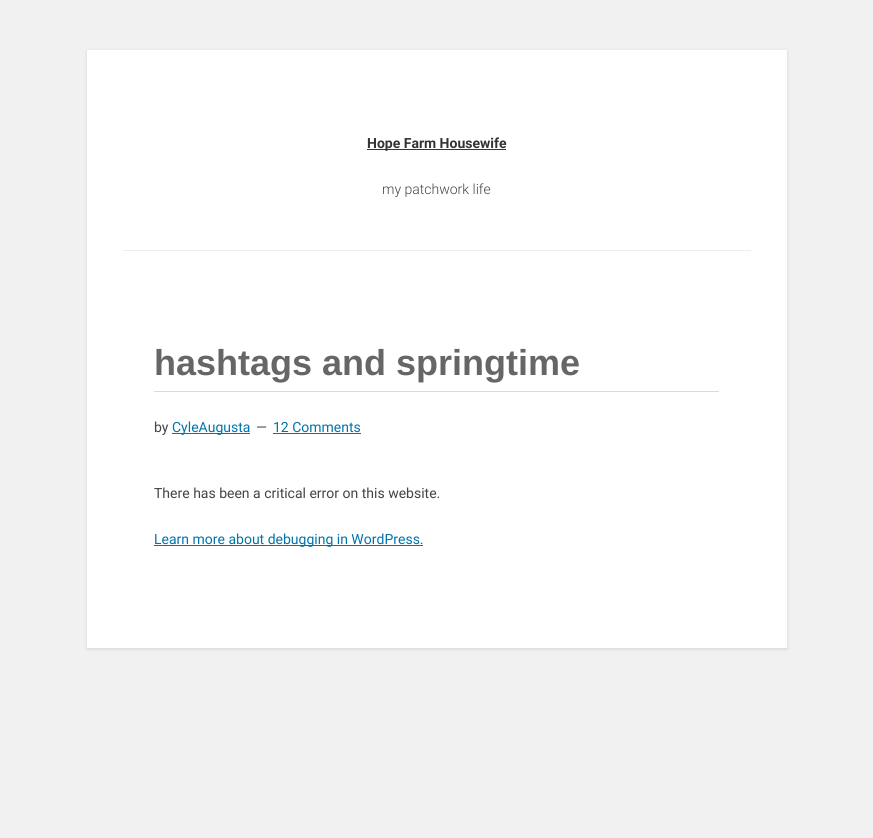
import math
import cairo


def round_path(ctx, x, y, w, h, r):
	ctx.new_sub_path()
	for i, (u, v) in enumerate([(x + w - r, y + h - r), (x + r, y + h - r), (x + r, y + r), (x + w - r, y + r)]):
		ctx.arc(u, v, r, i * math.pi / 2, (i + 1) * math.pi / 2)
	ctx.close_path()

def blur_box(ctx, x, y, w, h, r, blur, alpha):
	ctx.push_group_with_content(cairo.CONTENT_ALPHA)
	ctx.set_operator(cairo.OPERATOR_SOURCE)
	for i in range(15, -16, -2):
		e = blur * i / 6
		if min(w, h) + 2 * e > 0:
			ctx.set_source_rgba(0, 0, 0, alpha * math.erfc((i - 1) / 8.5) / 2)
			round_path(ctx, x - e, y - e, w + 2 * e, h + 2 * e, max(0, min(r + e + blur * .6, min(w, h) / 2 + e)))
			ctx.fill()
	ctx.mask(ctx.pop_group())

def draw(ctx):
	ctx.set_source_rgb(0.945, 0.945, 0.945)
	ctx.paint()
	ctx.set_source_rgb(0, 0, 0)
	blur_box(ctx, 87, 51, 700, 598, 0, 1.5, 0.13)
	ctx.set_source_rgb(1, 1, 1)
	ctx.rectangle(87, 50, 700, 598)
	ctx.fill()
	ctx.set_source_rgb(0.933, 0.933, 0.933)
	ctx.rectangle(123, 250, 628, 1)
	ctx.fill()
	ctx.set_source_rgb(0.2, 0.2, 0.2)
	ctx.rectangle(367, 149, 139, 1)
	ctx.fill()
	ctx.select_font_face('Roboto', cairo.FONT_SLANT_NORMAL, cairo.FONT_WEIGHT_BOLD)
	ctx.set_font_size(14)
	ctx.move_to(367, 148)
	ctx.show_text('Hope Farm Housewife')
	ctx.select_font_face('Roboto Light')
	ctx.set_source_rgb(0.267, 0.267, 0.267)
	ctx.move_to(382, 194)
	ctx.show_text('my patchwork life')
	ctx.set_source_rgb(0.855, 0.855, 0.855)
	ctx.rectangle(154, 391, 565, 1)
	ctx.fill()
	ctx.select_font_face('Liberation Sans', cairo.FONT_SLANT_NORMAL, cairo.FONT_WEIGHT_BOLD)
	ctx.set_font_size(36)
	ctx.set_source_rgb(0.4, 0.4, 0.4)
	ctx.move_to(154, 375)
	ctx.show_text('hashtags and springtime')
	ctx.select_font_face('Roboto')
	ctx.set_font_size(14)
	ctx.set_source_rgb(0.267, 0.267, 0.267)
	ctx.move_to(154, 432)
	ctx.show_text('by')
	ctx.set_source_rgb(0, 0.451, 0.667)
	ctx.rectangle(172, 433, 78, 1)
	ctx.fill()
	ctx.move_to(172, 432)
	ctx.show_text('CyleAugusta')
	ctx.set_source_rgb(0.267, 0.267, 0.267)
	ctx.move_to(256, 432)
	ctx.show_text('—')
	ctx.set_source_rgb(0, 0.451, 0.667)
	ctx.move_to(273, 432)
	ctx.show_text('12 Comments')
	ctx.rectangle(273, 433, 88, 1)
	ctx.fill()
	ctx.set_source_rgb(0.267, 0.267, 0.267)
	ctx.move_to(154, 498)
	ctx.show_text('There has been a critical error on this website.')
	ctx.set_source_rgb(0, 0.451, 0.667)
	ctx.rectangle(154, 545, 269, 1)
	ctx.fill()
	ctx.move_to(154, 544)
	ctx.show_text('Learn more about debugging in WordPress.')


surface = cairo.ImageSurface(cairo.FORMAT_RGB24, 873, 838)
ctx = cairo.Context(surface)
options = cairo.FontOptions()
options.set_hint_metrics(cairo.HINT_METRICS_OFF)
options.set_hint_style(cairo.HINT_STYLE_NONE)
ctx.set_font_options(options)
ctx.set_miter_limit(4)
draw(ctx)
surface.write_to_png('image.png')
